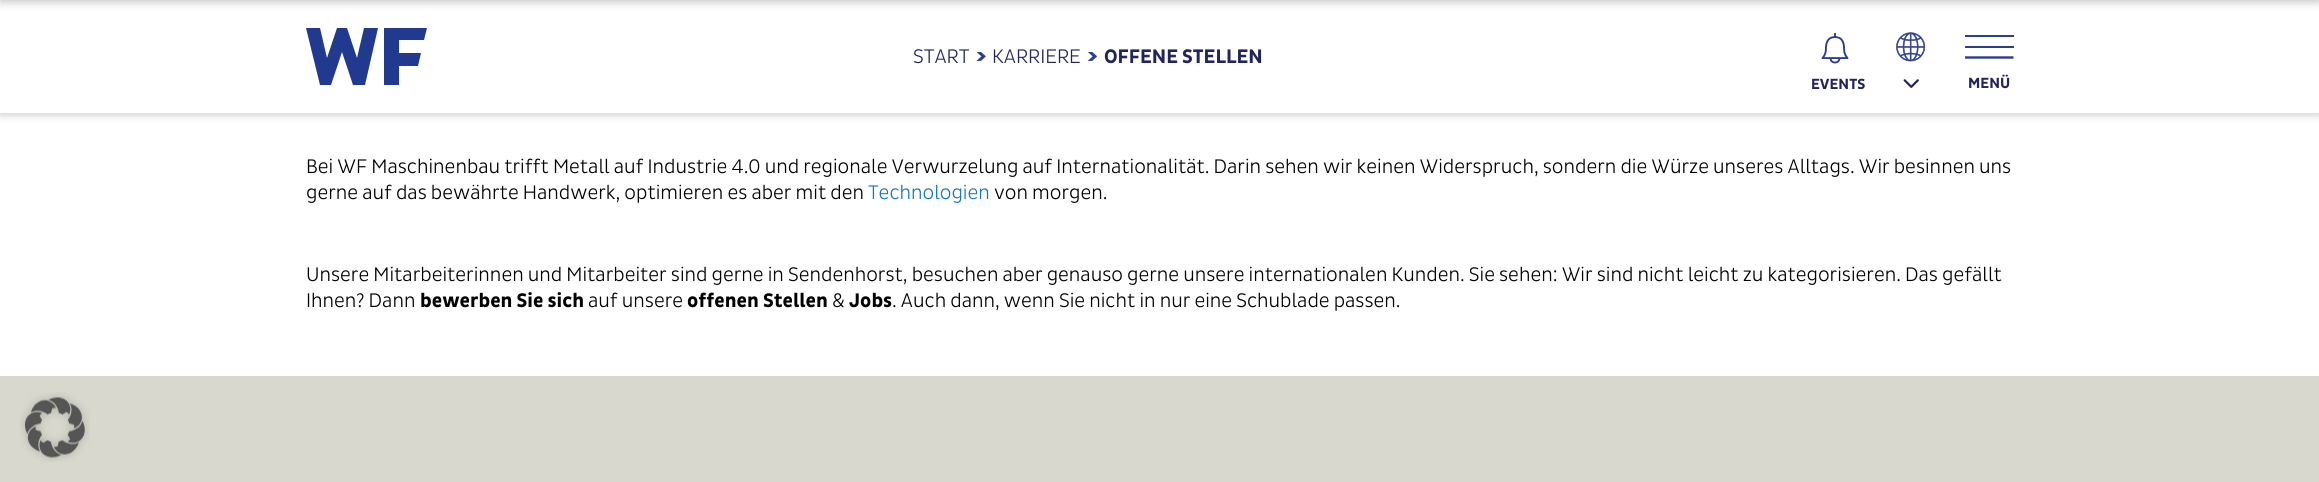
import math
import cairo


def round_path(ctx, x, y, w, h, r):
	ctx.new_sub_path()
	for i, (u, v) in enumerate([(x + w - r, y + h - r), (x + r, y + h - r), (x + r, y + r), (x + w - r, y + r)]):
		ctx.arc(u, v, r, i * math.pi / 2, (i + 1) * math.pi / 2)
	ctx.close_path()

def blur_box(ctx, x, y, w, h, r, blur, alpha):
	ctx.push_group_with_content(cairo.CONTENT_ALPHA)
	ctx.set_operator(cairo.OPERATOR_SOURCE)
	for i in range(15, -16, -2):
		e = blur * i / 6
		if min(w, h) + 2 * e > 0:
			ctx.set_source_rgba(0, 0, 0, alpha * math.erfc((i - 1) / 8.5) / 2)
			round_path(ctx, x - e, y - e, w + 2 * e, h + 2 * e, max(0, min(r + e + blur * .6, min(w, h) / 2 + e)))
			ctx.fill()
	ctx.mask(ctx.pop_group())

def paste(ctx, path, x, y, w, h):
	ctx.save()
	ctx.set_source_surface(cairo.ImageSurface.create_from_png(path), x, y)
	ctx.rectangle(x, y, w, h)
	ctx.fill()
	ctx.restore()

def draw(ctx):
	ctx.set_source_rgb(1, 1, 1)
	ctx.paint()
	ctx.set_source_rgb(0, 0, 0)
	blur_box(ctx, 0, 3, 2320, 112, 0, 4, 0.2)
	ctx.set_source_rgb(1, 1, 1)
	ctx.rectangle(0, 0, 2319, 113)
	ctx.fill()
	ctx.set_source_rgb(0, 0, 0)
	blur_box(ctx, 0, -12, 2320, 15, 0, 4, 0.2)
	ctx.set_source_rgb(0.129, 0.227, 0.561)
	ctx.new_path()
	ctx.move_to(365, 85)
	ctx.line_to(378, 28)
	ctx.line_to(364, 28)
	ctx.line_to(357, 58)
	ctx.line_to(347, 28)
	ctx.line_to(337, 28)
	ctx.line_to(327, 58)
	ctx.line_to(320, 28)
	ctx.line_to(306, 28)
	ctx.line_to(320, 85)
	ctx.line_to(331, 85)
	ctx.line_to(342, 52)
	ctx.line_to(353, 85)
	ctx.close_path()
	ctx.move_to(427, 28)
	ctx.line_to(384, 28)
	ctx.line_to(384, 85)
	ctx.line_to(399, 85)
	ctx.line_to(399, 66)
	ctx.line_to(418, 66)
	ctx.line_to(421, 53)
	ctx.line_to(399, 53)
	ctx.line_to(399, 40)
	ctx.line_to(424, 40)
	ctx.close_path()
	ctx.fill()
	ctx.select_font_face('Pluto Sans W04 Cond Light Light')
	ctx.set_font_size(20)
	ctx.set_source_rgb(0.133, 0.145, 0.357)
	ctx.move_to(913, 63)
	ctx.show_text('START')
	paste(ctx, 'media/1.png', 976, 52, 10, 9)
	ctx.move_to(992, 63)
	ctx.show_text('KARRIERE')
	paste(ctx, 'media/2.png', 1088, 52, 9, 9)
	ctx.select_font_face('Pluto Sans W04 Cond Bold', cairo.FONT_SLANT_NORMAL, cairo.FONT_WEIGHT_BOLD)
	ctx.move_to(1104, 63)
	ctx.show_text('OFFENE STELLEN')
	paste(ctx, 'media/3.png', 1896, 32, 30, 30)
	paste(ctx, 'media/4.png', 1903, 79, 16, 9)
	paste(ctx, 'media/5.png', 1821, 32, 28, 32)
	ctx.set_font_size(15)
	ctx.move_to(1811, 89)
	ctx.show_text('EVENTS')
	ctx.set_source_rgb(0.18, 0.239, 0.549)
	ctx.rectangle(1965, 35, 49, 2)
	ctx.fill()
	ctx.rectangle(1965, 46, 49, 2)
	ctx.fill()
	ctx.new_path()
	ctx.move_to(1965, 57.5)
	ctx.line_to(2013.5, 57.5)
	ctx.set_line_width(2.4)
	ctx.stroke()
	ctx.set_source_rgb(0.133, 0.145, 0.357)
	ctx.move_to(1968, 88)
	ctx.show_text('MENÜ')
	ctx.select_font_face('Pluto Sans W04 Cond Light Light')
	ctx.set_font_size(20)
	ctx.set_source_rgb(0, 0, 0)
	ctx.move_to(306, 173)
	ctx.show_text('Bei WF Maschinenbau trifft Metall auf Industrie 4.0 und regionale Verwurzelung auf Internationalität. Darin sehen wir keinen Widerspruch, sondern die Würze unseres Alltags. Wir besinnen uns')
	ctx.move_to(306, 199)
	ctx.show_text('gerne auf das bewährte Handwerk, optimieren es aber mit den')
	ctx.set_source_rgb(0.09, 0.475, 0.729)
	ctx.move_to(868, 199)
	ctx.show_text('Technologien')
	ctx.set_source_rgb(0, 0, 0)
	for x, y, s in [
		(994, 199, 'von morgen.'),
		(306, 281, 'Unsere Mitarbeiterinnen und Mitarbeiter sind gerne in Sendenhorst, besuchen aber genauso gerne unsere internationalen Kunden. Sie sehen: Wir sind nicht leicht zu kategorisieren. Das gefällt'),
		(306, 307, 'Ihnen? Dann'),
	]:
		ctx.move_to(x, y)
		ctx.show_text(s)
	ctx.select_font_face('Pluto Sans W04 Cond Bold', cairo.FONT_SLANT_NORMAL, cairo.FONT_WEIGHT_BOLD)
	ctx.move_to(420, 307)
	ctx.show_text('bewerben Sie sich')
	ctx.select_font_face('Pluto Sans W04 Cond Light Light')
	ctx.move_to(588, 307)
	ctx.show_text('auf unsere')
	ctx.select_font_face('Pluto Sans W04 Cond Bold', cairo.FONT_SLANT_NORMAL, cairo.FONT_WEIGHT_BOLD)
	ctx.move_to(687, 307)
	ctx.show_text('offenen Stellen')
	ctx.select_font_face('Pluto Sans W04 Cond Light Light')
	ctx.move_to(832, 307)
	ctx.show_text('&')
	ctx.select_font_face('Pluto Sans W04 Cond Bold', cairo.FONT_SLANT_NORMAL, cairo.FONT_WEIGHT_BOLD)
	ctx.move_to(849, 307)
	ctx.show_text('Jobs')
	ctx.select_font_face('Pluto Sans W04 Cond Light Light')
	ctx.move_to(892, 307)
	ctx.show_text('. Auch dann, wenn Sie nicht in nur eine Schublade passen.')
	ctx.set_source_rgb(0.847, 0.847, 0.808)
	ctx.rectangle(0, 376, 2319, 106)
	ctx.fill()
	paste(ctx, 'media/6.png', 20, 392, 70, 70)


surface = cairo.ImageSurface(cairo.FORMAT_RGB24, 2319, 482)
ctx = cairo.Context(surface)
options = cairo.FontOptions()
options.set_hint_metrics(cairo.HINT_METRICS_OFF)
options.set_hint_style(cairo.HINT_STYLE_NONE)
ctx.set_font_options(options)
ctx.set_miter_limit(4)
draw(ctx)
surface.write_to_png('image.png')
